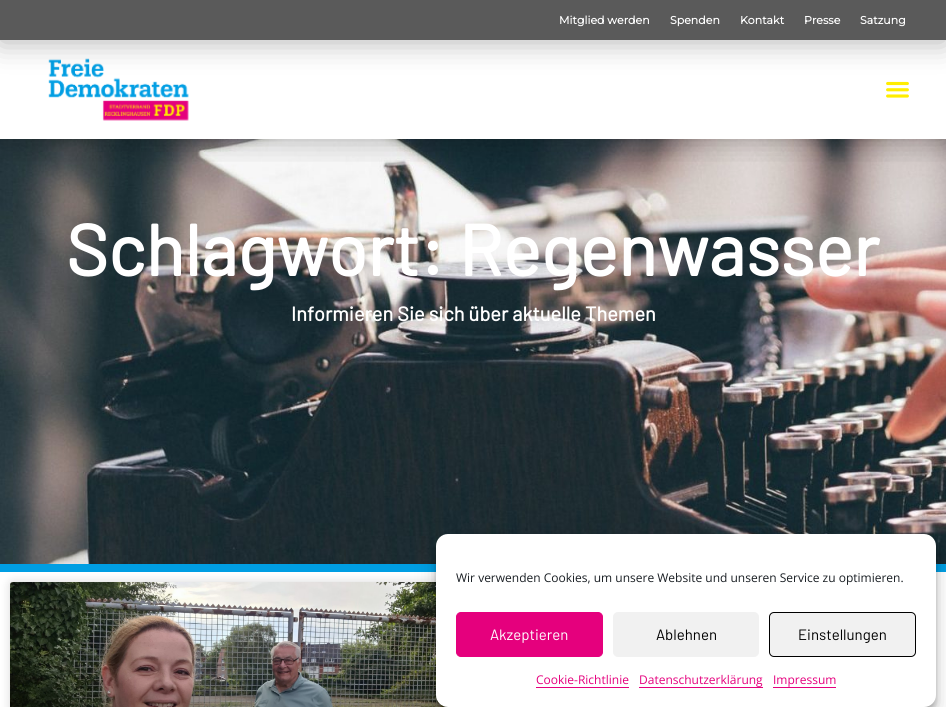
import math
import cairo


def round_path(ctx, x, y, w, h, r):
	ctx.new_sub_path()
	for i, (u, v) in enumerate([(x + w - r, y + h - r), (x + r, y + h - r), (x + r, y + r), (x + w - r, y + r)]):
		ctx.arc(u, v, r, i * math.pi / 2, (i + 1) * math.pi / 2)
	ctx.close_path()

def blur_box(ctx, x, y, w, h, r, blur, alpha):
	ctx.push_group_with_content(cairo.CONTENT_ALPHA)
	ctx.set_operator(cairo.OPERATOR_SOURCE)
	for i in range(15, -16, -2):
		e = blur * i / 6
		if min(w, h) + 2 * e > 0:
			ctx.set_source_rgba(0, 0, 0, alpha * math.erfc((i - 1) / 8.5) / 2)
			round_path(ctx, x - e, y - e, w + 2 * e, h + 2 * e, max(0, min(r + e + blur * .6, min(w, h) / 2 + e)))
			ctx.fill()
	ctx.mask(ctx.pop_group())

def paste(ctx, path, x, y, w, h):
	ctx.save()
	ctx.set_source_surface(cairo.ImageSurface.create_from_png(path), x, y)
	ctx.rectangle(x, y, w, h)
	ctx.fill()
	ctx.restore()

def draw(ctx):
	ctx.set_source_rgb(1, 1, 1)
	ctx.paint()
	paste(ctx, 'media/3.png', 0, 139, 946, 425)
	ctx.save()
	ctx.rectangle(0, 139, 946, 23)
	ctx.clip()
	ctx.set_source_rgb(0, 0, 0)
	blur_box(ctx, 0, 40, 946, 99, 0, 15, 0.3)
	ctx.restore()
	paste(ctx, 'media/1.png', 48, 58, 141, 63)
	paste(ctx, 'media/2.png', 886, 81, 23, 17)
	ctx.set_source_rgb(0, 0, 0)
	blur_box(ctx, 0, 2, 946, 40, 0, 15, 0.3)
	ctx.set_source_rgb(0.353, 0.353, 0.353)
	ctx.rectangle(0, 0, 946, 40)
	ctx.fill()
	ctx.select_font_face('Montserrat', cairo.FONT_SLANT_NORMAL, cairo.FONT_WEIGHT_BOLD)
	ctx.set_font_size(11)
	ctx.set_source_rgb(1, 1, 1)
	for x, y, s in [
		(559, 24, 'Mitglied werden'),
		(670, 24, 'Spenden'),
		(740, 24, 'Kontakt'),
		(804, 24, 'Presse'),
		(860, 24, 'Satzung'),
	]:
		ctx.move_to(x, y)
		ctx.show_text(s)
	ctx.set_source_rgb(0, 0.62, 0.89)
	ctx.rectangle(0, 564, 946, 8)
	ctx.fill()
	ctx.select_font_face('Barlow', cairo.FONT_SLANT_NORMAL, cairo.FONT_WEIGHT_BOLD)
	ctx.set_font_size(72)
	ctx.set_source_rgb(1, 1, 1)
	ctx.move_to(66, 276)
	ctx.show_text('Schlagwort: Regenwasser')
	ctx.set_font_size(20)
	ctx.move_to(291, 321)
	ctx.show_text('Informieren Sie sich über aktuelle Themen')
	ctx.set_source_rgb(0, 0, 0)
	blur_box(ctx, 10, 582, 448, 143, 3, 5, 0.15)
	paste(ctx, 'media/4.png', 10, 582, 438, 125)
	gradient = cairo.LinearGradient(234, 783, 234, 582)
	gradient.add_color_stop_rgba(0, 0, 0, 0, 0.35)
	gradient.add_color_stop_rgba(0.75, 0, 0, 0, 0)
	ctx.set_source(gradient)
	ctx.rectangle(10, 642, 438, 65)
	ctx.fill()
	ctx.set_source_rgb(0, 0, 0)
	blur_box(ctx, 436, 540, 500, 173, 12, 3, 0.23)
	blur_box(ctx, 436, 544, 500, 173, 12, 10, 0.19)
	ctx.set_source_rgb(1, 1, 1)
	round_path(ctx, 436, 534, 500, 173, 12)
	ctx.fill()
	ctx.select_font_face('Open Sans')
	ctx.set_font_size(12)
	ctx.set_source_rgb(0.098, 0.118, 0.137)
	ctx.move_to(456, 582)
	ctx.show_text('Wir verwenden Cookies, um unsere Website und unseren Service zu optimieren.')
	ctx.set_source_rgb(0.898, 0, 0.49)
	round_path(ctx, 456.5, 612.5, 146, 44, 4.5)
	ctx.fill_preserve()
	ctx.set_line_width(1)
	ctx.stroke()
	ctx.select_font_face('Barlow')
	ctx.set_font_size(15)
	ctx.set_source_rgb(1, 1, 1)
	ctx.move_to(490, 640)
	ctx.show_text('Akzeptieren')
	ctx.set_source_rgb(0.945, 0.945, 0.945)
	round_path(ctx, 613.5, 612.5, 145, 44, 4.5)
	ctx.fill_preserve()
	ctx.stroke()
	ctx.set_source_rgb(0, 0, 0)
	ctx.move_to(656, 640)
	ctx.show_text('Ablehnen')
	ctx.set_source_rgb(0.945, 0.945, 0.945)
	round_path(ctx, 769.5, 612.5, 146, 44, 4.5)
	ctx.fill_preserve()
	ctx.set_source_rgb(0, 0, 0)
	ctx.stroke()
	ctx.move_to(798, 640)
	ctx.show_text('Einstellungen')
	ctx.select_font_face('Open Sans')
	ctx.set_font_size(12)
	ctx.set_source_rgb(0.898, 0, 0.49)
	ctx.move_to(536, 684)
	ctx.show_text('Cookie-Richtlinie')
	ctx.rectangle(536, 687, 93, 1)
	ctx.fill()
	ctx.move_to(639, 684)
	ctx.show_text('Datenschutzerklärung')
	ctx.rectangle(639, 687, 124, 1)
	ctx.fill()
	ctx.move_to(773, 684)
	ctx.show_text('Impressum')
	ctx.rectangle(773, 687, 63, 1)
	ctx.fill()


surface = cairo.ImageSurface(cairo.FORMAT_RGB24, 946, 707)
ctx = cairo.Context(surface)
options = cairo.FontOptions()
options.set_hint_metrics(cairo.HINT_METRICS_OFF)
options.set_hint_style(cairo.HINT_STYLE_NONE)
ctx.set_font_options(options)
ctx.set_miter_limit(4)
draw(ctx)
surface.write_to_png('image.png')
